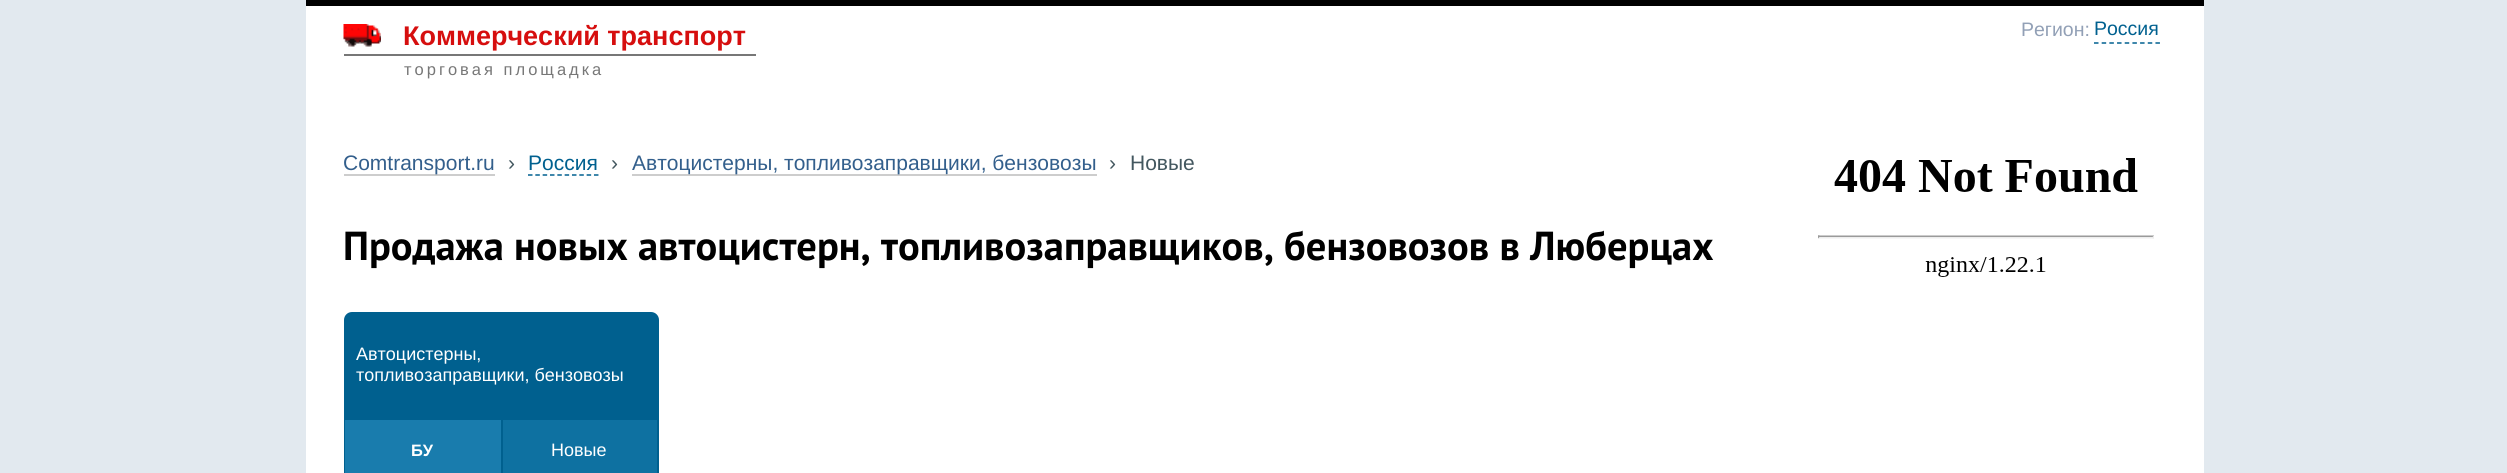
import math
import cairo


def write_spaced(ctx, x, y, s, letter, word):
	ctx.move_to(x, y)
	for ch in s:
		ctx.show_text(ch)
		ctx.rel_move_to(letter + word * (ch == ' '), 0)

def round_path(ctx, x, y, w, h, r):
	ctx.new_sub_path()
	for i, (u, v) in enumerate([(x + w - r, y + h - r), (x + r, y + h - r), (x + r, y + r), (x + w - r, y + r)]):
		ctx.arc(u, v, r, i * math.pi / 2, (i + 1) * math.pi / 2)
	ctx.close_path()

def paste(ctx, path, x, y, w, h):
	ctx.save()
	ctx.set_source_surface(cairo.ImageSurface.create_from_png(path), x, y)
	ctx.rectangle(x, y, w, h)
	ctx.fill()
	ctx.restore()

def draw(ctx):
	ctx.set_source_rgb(0.886, 0.914, 0.937)
	ctx.paint()
	ctx.set_source_rgb(0, 0, 0)
	ctx.rectangle(306, 0, 1898, 6)
	ctx.fill()
	ctx.set_source_rgb(1, 1, 1)
	ctx.rectangle(306, 6, 1898, 467)
	ctx.fill()
	paste(ctx, 'media/1.png', 343, 24, 38, 23)
	ctx.set_source_rgb(0.467, 0.467, 0.467)
	ctx.rectangle(344, 54, 412, 2)
	ctx.fill()
	ctx.select_font_face('Liberation Sans', cairo.FONT_SLANT_NORMAL, cairo.FONT_WEIGHT_BOLD)
	ctx.set_font_size(27)
	ctx.set_source_rgb(0.839, 0.055, 0.055)
	ctx.move_to(403, 45)
	ctx.show_text('Коммерческий транспорт')
	ctx.select_font_face('Liberation Sans')
	ctx.set_font_size(19.5)
	ctx.set_source_rgb(0.573, 0.627, 0.714)
	ctx.move_to(2021, 36)
	ctx.show_text('Регион:')
	ctx.new_path()
	ctx.move_to(2094, 43)
	ctx.line_to(2160, 43)
	ctx.set_source_rgb(0, 0.376, 0.561)
	ctx.set_line_width(1.5)
	ctx.set_dash([4.5, 3.18])
	ctx.stroke()
	ctx.move_to(2094, 35)
	ctx.show_text('Россия')
	ctx.set_font_size(16.5)
	ctx.set_source_rgb(0.467, 0.467, 0.467)
	write_spaced(ctx, 404, 75, 'торговая площадка', 3, 0)
	ctx.set_source_rgb(0.804, 0.804, 0.804)
	ctx.rectangle(344, 174, 151, 2)
	ctx.fill()
	ctx.save()
	ctx.rectangle(344, 84, 1425, 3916)
	ctx.clip()
	ctx.set_font_size(21)
	ctx.set_source_rgb(0.2, 0.373, 0.549)
	ctx.move_to(343, 170)
	ctx.show_text('Comtransport.ru')
	ctx.restore()
	ctx.set_font_size(21)
	ctx.set_source_rgb(0.263, 0.341, 0.373)
	ctx.move_to(508, 170)
	ctx.show_text('›')
	ctx.set_source_rgb(0, 0.376, 0.561)
	ctx.move_to(528, 170)
	ctx.show_text('Россия')
	ctx.new_path()
	ctx.move_to(528, 175)
	ctx.line_to(598.5, 175)
	ctx.set_dash([4.5, 2.83])
	ctx.stroke()
	ctx.set_source_rgb(0.263, 0.341, 0.373)
	ctx.move_to(611, 170)
	ctx.show_text('›')
	ctx.set_source_rgb(0.804, 0.804, 0.804)
	ctx.rectangle(632, 174, 465, 2)
	ctx.fill()
	ctx.set_source_rgb(0.2, 0.373, 0.549)
	ctx.move_to(632, 170)
	ctx.show_text('Автоцистерны, топливозаправщики, бензовозы')
	ctx.set_source_rgb(0.263, 0.341, 0.373)
	ctx.move_to(1109, 170)
	ctx.show_text('›')
	ctx.move_to(1130, 170)
	ctx.show_text('Новые')
	ctx.select_font_face('PT Sans', cairo.FONT_SLANT_NORMAL, cairo.FONT_WEIGHT_BOLD)
	ctx.set_font_size(40.5)
	ctx.set_source_rgb(0, 0, 0)
	ctx.move_to(343, 260)
	ctx.show_text('Продажа новых автоцистерн, топливозаправщиков, бензовозов в Люберцах')
	ctx.set_source_rgb(0, 0.376, 0.561)
	round_path(ctx, 345, 313, 313, 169, 7)
	ctx.fill_preserve()
	ctx.set_line_width(2)
	ctx.set_dash([])
	ctx.stroke()
	ctx.select_font_face('Liberation Sans')
	ctx.set_font_size(18)
	ctx.set_source_rgb(1, 1, 1)
	ctx.move_to(356, 360)
	ctx.show_text('Автоцистерны,')
	ctx.move_to(356, 381)
	ctx.show_text('топливозаправщики, бензовозы')
	ctx.set_source_rgb(0.098, 0.486, 0.678)
	ctx.rectangle(345, 420, 156, 53)
	ctx.fill()
	ctx.select_font_face('Liberation Sans', cairo.FONT_SLANT_NORMAL, cairo.FONT_WEIGHT_BOLD)
	ctx.set_font_size(16.5)
	ctx.set_source_rgb(1, 1, 1)
	ctx.move_to(411, 456)
	ctx.show_text('БУ')
	ctx.set_source_rgb(0.055, 0.443, 0.631)
	ctx.rectangle(503, 420, 154, 53)
	ctx.fill()
	ctx.select_font_face('Liberation Sans')
	ctx.set_font_size(18)
	ctx.set_source_rgb(1, 1, 1)
	ctx.move_to(551, 456)
	ctx.show_text('Новые')
	paste(ctx, 'media/2.png', 1818, 158, 336, 119)


surface = cairo.ImageSurface(cairo.FORMAT_RGB24, 2507, 473)
ctx = cairo.Context(surface)
options = cairo.FontOptions()
options.set_hint_metrics(cairo.HINT_METRICS_OFF)
options.set_hint_style(cairo.HINT_STYLE_NONE)
ctx.set_font_options(options)
ctx.set_miter_limit(4)
draw(ctx)
surface.write_to_png('image.png')
